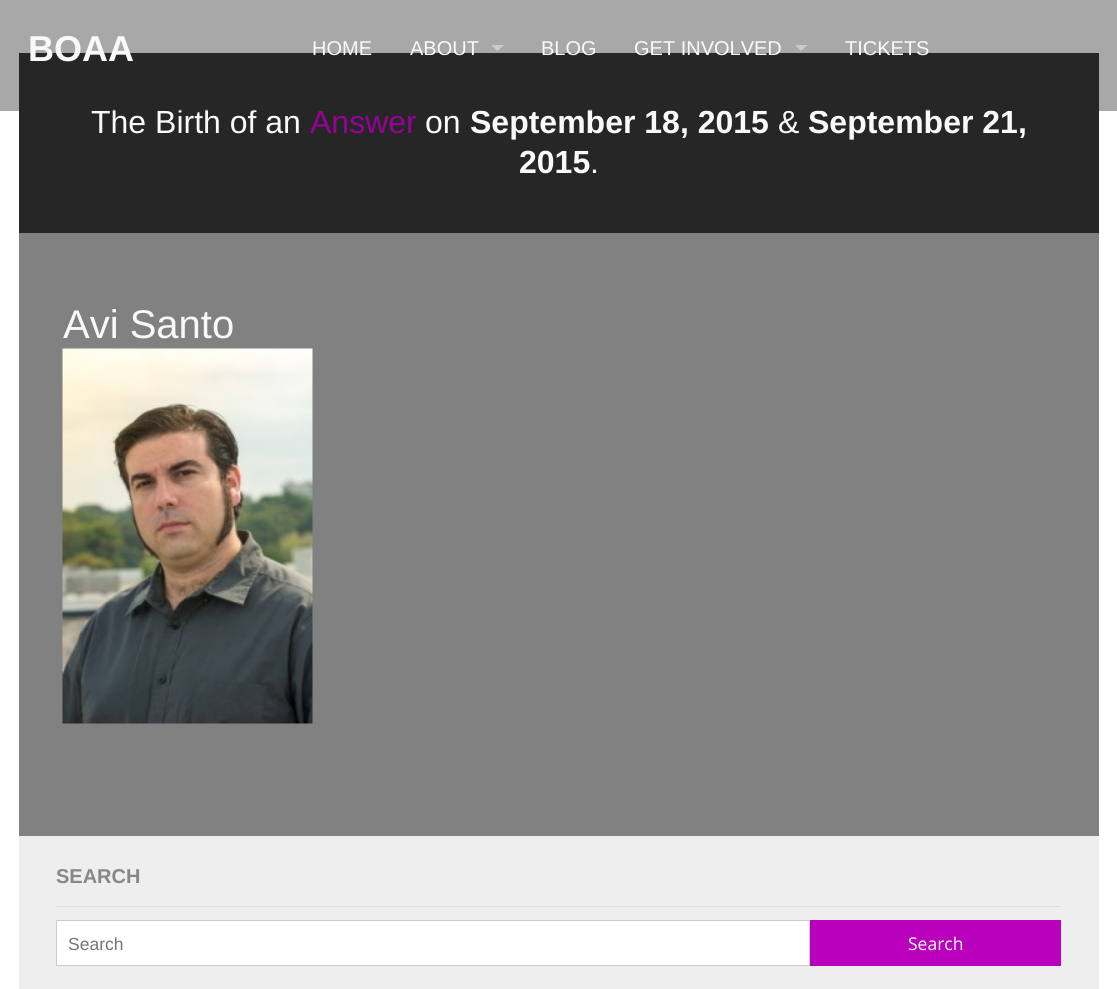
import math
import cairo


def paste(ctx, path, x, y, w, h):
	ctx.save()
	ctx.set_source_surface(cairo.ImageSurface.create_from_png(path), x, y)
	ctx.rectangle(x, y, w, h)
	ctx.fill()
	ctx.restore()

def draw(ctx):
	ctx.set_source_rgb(1, 1, 1)
	ctx.paint()
	ctx.set_source_rgb(0.149, 0.149, 0.149)
	ctx.rectangle(19, 53, 1080, 180)
	ctx.fill()
	ctx.select_font_face('Liberation Sans')
	ctx.set_font_size(32)
	ctx.set_source_rgb(0.973, 0.973, 0.973)
	ctx.move_to(91, 133)
	ctx.show_text('The Birth of an')
	ctx.select_font_face('Liberation Sans', cairo.FONT_SLANT_NORMAL, cairo.FONT_WEIGHT_BOLD)
	ctx.move_to(470, 133)
	ctx.show_text('September 18, 2015')
	ctx.select_font_face('Liberation Sans')
	ctx.move_to(778, 133)
	ctx.show_text('&')
	ctx.select_font_face('Liberation Sans', cairo.FONT_SLANT_NORMAL, cairo.FONT_WEIGHT_BOLD)
	ctx.move_to(808, 133)
	ctx.show_text('September 21,')
	ctx.set_source_rgba(0.149, 0.149, 0.149, 0.4)
	ctx.rectangle(0, 0, 1117, 111)
	ctx.fill()
	ctx.set_font_size(36)
	ctx.set_source_rgb(0.973, 0.973, 0.973)
	ctx.move_to(28, 61)
	ctx.show_text('BOAA')
	ctx.select_font_face('Liberation Sans')
	ctx.set_font_size(20)
	ctx.move_to(312, 55)
	ctx.show_text('HOME')
	ctx.move_to(410, 55)
	ctx.show_text('ABOUT')
	ctx.set_source_rgb(0.796, 0.796, 0.796)
	ctx.new_path()
	ctx.move_to(491, 45)
	ctx.line_to(504, 45)
	ctx.line_to(497.5, 51)
	ctx.close_path()
	ctx.fill()
	ctx.set_source_rgb(0.973, 0.973, 0.973)
	ctx.move_to(541, 55)
	ctx.show_text('BLOG')
	ctx.move_to(634, 55)
	ctx.show_text('GET INVOLVED')
	ctx.set_source_rgb(0.796, 0.796, 0.796)
	ctx.new_path()
	ctx.move_to(795, 45)
	ctx.line_to(807.5, 45)
	ctx.line_to(801, 51)
	ctx.close_path()
	ctx.fill()
	ctx.set_source_rgb(0.973, 0.973, 0.973)
	ctx.move_to(845, 55)
	ctx.show_text('TICKETS')
	ctx.set_font_size(32)
	ctx.set_source_rgb(0.58, 0.008, 0.592)
	ctx.move_to(310, 133)
	ctx.show_text('Answer')
	ctx.set_source_rgb(0.973, 0.973, 0.973)
	ctx.move_to(425, 133)
	ctx.show_text('on')
	ctx.select_font_face('Liberation Sans', cairo.FONT_SLANT_NORMAL, cairo.FONT_WEIGHT_BOLD)
	ctx.move_to(519, 173)
	ctx.show_text('2015')
	ctx.select_font_face('Liberation Sans')
	ctx.move_to(590, 173)
	ctx.show_text('.')
	ctx.set_source_rgb(0.506, 0.506, 0.506)
	ctx.rectangle(19, 233, 1080, 603)
	ctx.fill()
	ctx.set_font_size(40)
	ctx.set_source_rgb(0.973, 0.973, 0.973)
	ctx.move_to(63, 338)
	ctx.show_text('Avi Santo')
	paste(ctx, 'media/1.png', 62, 348, 251, 376)
	ctx.set_source_rgb(0.933, 0.933, 0.933)
	ctx.rectangle(19, 836, 1080, 153)
	ctx.fill()
	ctx.set_source_rgb(0.867, 0.867, 0.867)
	ctx.rectangle(56, 906, 1005, 1)
	ctx.fill()
	ctx.select_font_face('Liberation Sans', cairo.FONT_SLANT_NORMAL, cairo.FONT_WEIGHT_BOLD)
	ctx.set_font_size(20)
	ctx.set_source_rgb(0.533, 0.533, 0.533)
	ctx.move_to(56, 883)
	ctx.show_text('SEARCH')
	ctx.set_source_rgb(1, 1, 1)
	ctx.rectangle(56.5, 920.5, 753, 45)
	ctx.fill_preserve()
	ctx.set_source_rgb(0.8, 0.8, 0.8)
	ctx.set_line_width(1)
	ctx.stroke()
	ctx.select_font_face('Liberation Sans')
	ctx.set_font_size(17.5)
	ctx.set_source_rgb(0.459, 0.459, 0.459)
	ctx.move_to(68, 950)
	ctx.show_text('Search')
	ctx.set_source_rgb(0.725, 0.004, 0.741)
	ctx.rectangle(810, 920, 251, 46)
	ctx.fill()
	ctx.select_font_face('Open Sans')
	ctx.set_source_rgb(1, 1, 1)
	ctx.move_to(908, 950)
	ctx.show_text('Search')


surface = cairo.ImageSurface(cairo.FORMAT_RGB24, 1117, 989)
ctx = cairo.Context(surface)
options = cairo.FontOptions()
options.set_hint_metrics(cairo.HINT_METRICS_OFF)
options.set_hint_style(cairo.HINT_STYLE_NONE)
ctx.set_font_options(options)
ctx.set_miter_limit(4)
draw(ctx)
surface.write_to_png('image.png')
